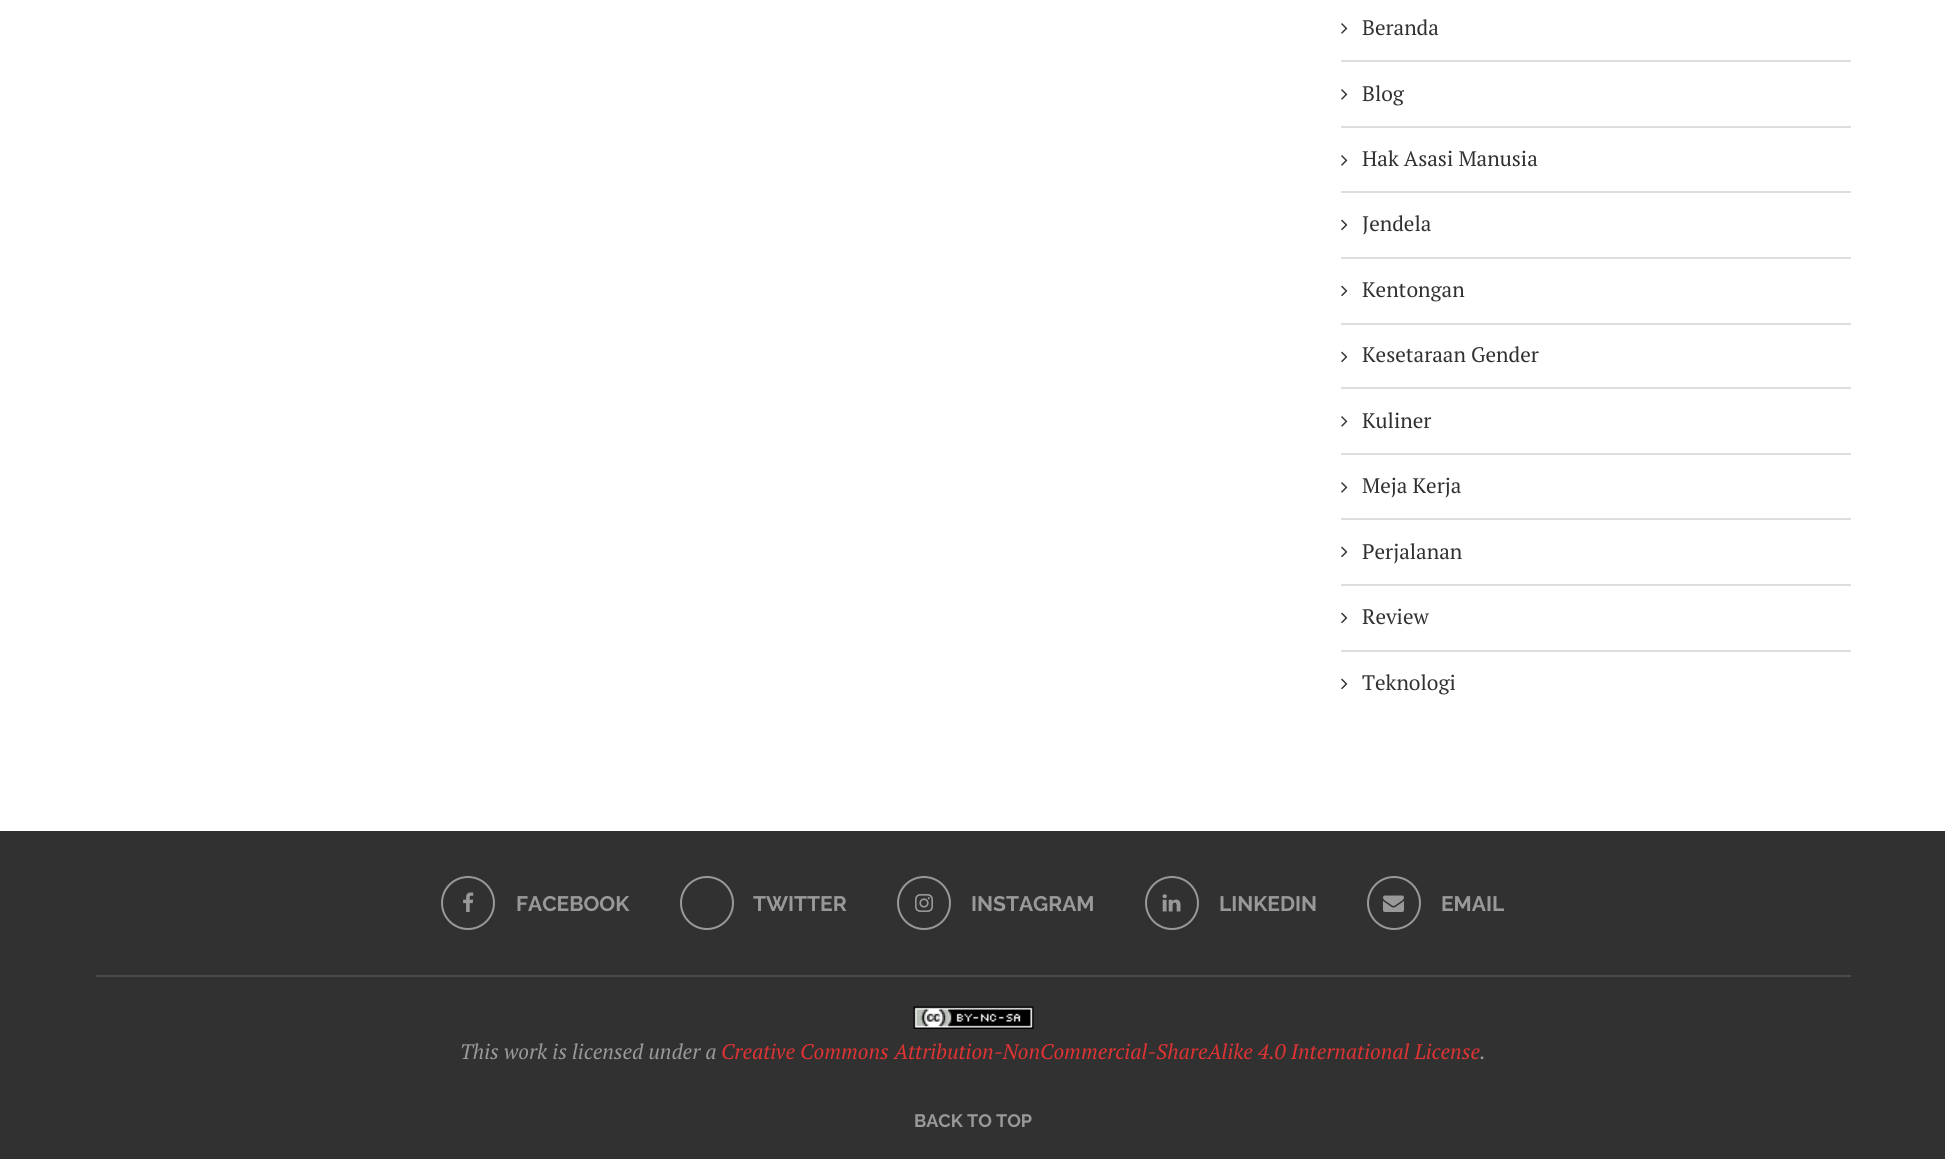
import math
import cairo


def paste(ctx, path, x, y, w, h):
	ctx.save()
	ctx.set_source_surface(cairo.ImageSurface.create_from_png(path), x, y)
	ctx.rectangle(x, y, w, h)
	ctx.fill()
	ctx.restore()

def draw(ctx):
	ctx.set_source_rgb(1, 1, 1)
	ctx.paint()
	ctx.set_source_rgb(0.871, 0.871, 0.871)
	ctx.rectangle(1341, 60, 510, 2)
	ctx.fill()
	paste(ctx, 'media/1.png', 1341, 23, 7, 11)
	ctx.select_font_face('PT Serif')
	ctx.set_font_size(21)
	ctx.set_source_rgb(0.192, 0.192, 0.192)
	ctx.move_to(1362, 35)
	ctx.show_text('Beranda')
	ctx.set_source_rgb(0.871, 0.871, 0.871)
	ctx.rectangle(1341, 126, 510, 2)
	ctx.fill()
	paste(ctx, 'media/1.png', 1341, 89, 7, 11)
	ctx.set_source_rgb(0.192, 0.192, 0.192)
	ctx.move_to(1362, 101)
	ctx.show_text('Blog')
	ctx.set_source_rgb(0.871, 0.871, 0.871)
	ctx.rectangle(1341, 191, 510, 2)
	ctx.fill()
	paste(ctx, 'media/1.png', 1341, 155, 7, 11)
	ctx.set_source_rgb(0.192, 0.192, 0.192)
	ctx.move_to(1362, 166)
	ctx.show_text('Hak Asasi Manusia')
	ctx.set_source_rgb(0.871, 0.871, 0.871)
	ctx.rectangle(1341, 257, 510, 2)
	ctx.fill()
	paste(ctx, 'media/2.png', 1341, 219, 7, 12)
	ctx.set_source_rgb(0.192, 0.192, 0.192)
	ctx.move_to(1362, 231)
	ctx.show_text('Jendela')
	ctx.set_source_rgb(0.871, 0.871, 0.871)
	ctx.rectangle(1341, 323, 510, 2)
	ctx.fill()
	paste(ctx, 'media/2.png', 1341, 285, 7, 12)
	ctx.set_source_rgb(0.192, 0.192, 0.192)
	ctx.move_to(1362, 297)
	ctx.show_text('Kentongan')
	ctx.set_source_rgb(0.871, 0.871, 0.871)
	ctx.rectangle(1341, 387, 510, 2)
	ctx.fill()
	paste(ctx, 'media/2.png', 1341, 351, 7, 12)
	ctx.set_source_rgb(0.192, 0.192, 0.192)
	ctx.move_to(1362, 362)
	ctx.show_text('Kesetaraan Gender')
	ctx.set_source_rgb(0.871, 0.871, 0.871)
	ctx.rectangle(1341, 453, 510, 2)
	ctx.fill()
	paste(ctx, 'media/1.png', 1341, 416, 7, 11)
	ctx.set_source_rgb(0.192, 0.192, 0.192)
	ctx.move_to(1362, 428)
	ctx.show_text('Kuliner')
	ctx.set_source_rgb(0.871, 0.871, 0.871)
	ctx.rectangle(1341, 518, 510, 2)
	ctx.fill()
	paste(ctx, 'media/1.png', 1341, 482, 7, 11)
	ctx.set_source_rgb(0.192, 0.192, 0.192)
	ctx.move_to(1362, 493)
	ctx.show_text('Meja Kerja')
	ctx.set_source_rgb(0.871, 0.871, 0.871)
	ctx.rectangle(1341, 584, 510, 2)
	ctx.fill()
	paste(ctx, 'media/2.png', 1341, 546, 7, 12)
	ctx.set_source_rgb(0.192, 0.192, 0.192)
	ctx.move_to(1362, 559)
	ctx.show_text('Perjalanan')
	ctx.set_source_rgb(0.871, 0.871, 0.871)
	ctx.rectangle(1341, 650, 510, 2)
	ctx.fill()
	paste(ctx, 'media/2.png', 1341, 612, 7, 12)
	ctx.set_source_rgb(0.192, 0.192, 0.192)
	ctx.move_to(1362, 624)
	ctx.show_text('Review')
	paste(ctx, 'media/2.png', 1341, 678, 7, 12)
	ctx.move_to(1362, 690)
	ctx.show_text('Teknologi')
	ctx.rectangle(0, 831, 1945, 328)
	ctx.fill()
	ctx.set_source_rgb(0.29, 0.29, 0.29)
	ctx.rectangle(96, 975, 1755, 2)
	ctx.fill()
	ctx.arc(468, 903, 26, 0, 2 * math.pi)
	ctx.set_source_rgb(0.6, 0.6, 0.6)
	ctx.stroke()
	paste(ctx, 'media/3.png', 463, 892, 11, 20)
	ctx.select_font_face('Raleway', cairo.FONT_SLANT_NORMAL, cairo.FONT_WEIGHT_BOLD)
	ctx.move_to(516, 911)
	ctx.show_text('FACEBOOK')
	ctx.new_path()
	ctx.arc(707, 903, 26, 0, 2 * math.pi)
	ctx.stroke()
	ctx.move_to(753, 911)
	ctx.show_text('TWITTER')
	ctx.new_path()
	ctx.arc(924, 903, 26, 0, 2 * math.pi)
	ctx.stroke()
	paste(ctx, 'media/4.png', 915, 894, 18, 18)
	ctx.move_to(971, 911)
	ctx.show_text('INSTAGRAM')
	ctx.new_path()
	ctx.arc(1172, 903, 26, 0, 2 * math.pi)
	ctx.stroke()
	paste(ctx, 'media/5.png', 1162, 894, 19, 18)
	ctx.move_to(1219, 911)
	ctx.show_text('LINKEDIN')
	ctx.new_path()
	ctx.arc(1394, 903, 26, 0, 2 * math.pi)
	ctx.stroke()
	paste(ctx, 'media/6.png', 1383, 895, 21, 17)
	ctx.move_to(1441, 911)
	ctx.show_text('EMAIL')
	paste(ctx, 'media/7.png', 913, 1006, 121, 23)
	ctx.select_font_face('PT Serif', cairo.FONT_SLANT_ITALIC)
	ctx.move_to(460, 1059)
	ctx.show_text('This work is licensed under a')
	ctx.set_source_rgb(0.867, 0.2, 0.2)
	ctx.move_to(721, 1059)
	ctx.show_text('Creative Commons Attribution-NonCommercial-ShareAlike 4.0 International License')
	ctx.set_source_rgb(0.6, 0.6, 0.6)
	ctx.move_to(1480, 1059)
	ctx.show_text('.')
	ctx.select_font_face('Raleway', cairo.FONT_SLANT_NORMAL, cairo.FONT_WEIGHT_BOLD)
	ctx.set_font_size(18)
	ctx.move_to(914, 1127)
	ctx.show_text('BACK TO TOP')


surface = cairo.ImageSurface(cairo.FORMAT_RGB24, 1945, 1159)
ctx = cairo.Context(surface)
options = cairo.FontOptions()
options.set_hint_metrics(cairo.HINT_METRICS_OFF)
options.set_hint_style(cairo.HINT_STYLE_NONE)
ctx.set_font_options(options)
ctx.set_miter_limit(4)
draw(ctx)
surface.write_to_png('image.png')
